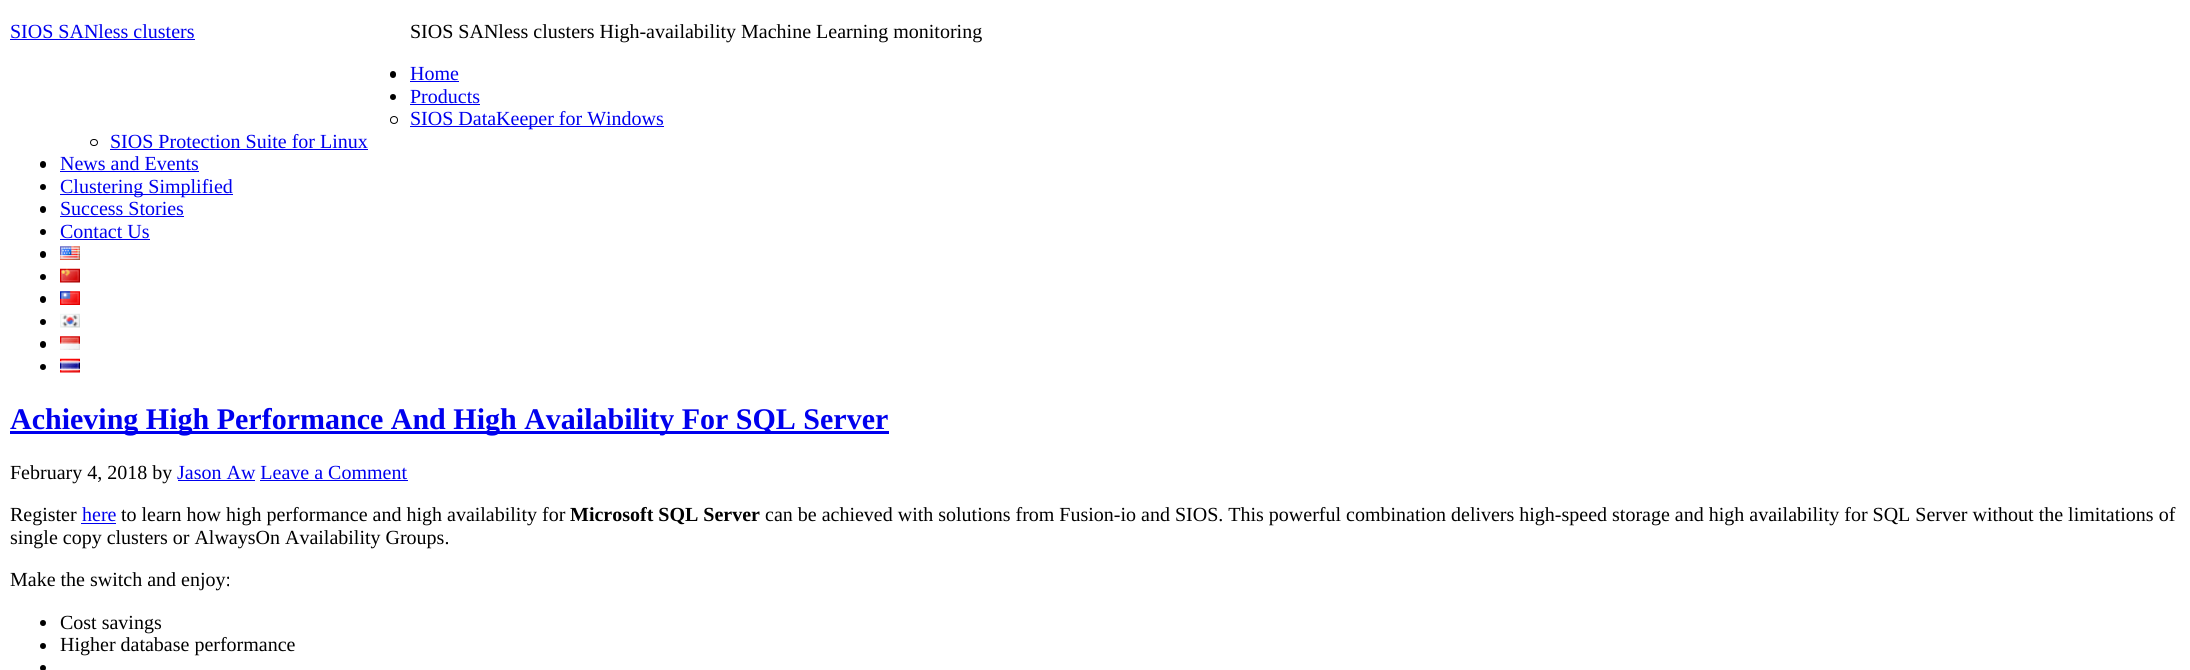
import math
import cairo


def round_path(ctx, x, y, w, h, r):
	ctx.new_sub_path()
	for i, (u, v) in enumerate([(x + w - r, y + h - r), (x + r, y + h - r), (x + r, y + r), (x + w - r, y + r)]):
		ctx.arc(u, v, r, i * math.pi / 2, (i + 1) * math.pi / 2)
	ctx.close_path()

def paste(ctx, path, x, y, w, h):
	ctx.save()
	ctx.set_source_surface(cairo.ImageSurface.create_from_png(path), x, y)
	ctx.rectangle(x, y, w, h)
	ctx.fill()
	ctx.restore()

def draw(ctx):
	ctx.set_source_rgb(1, 1, 1)
	ctx.paint()
	ctx.select_font_face('Liberation Serif')
	ctx.set_font_size(20)
	ctx.set_source_rgb(0, 0, 0.933)
	ctx.move_to(10, 38)
	ctx.show_text('SIOS SANless clusters')
	ctx.rectangle(10, 39, 185, 1)
	ctx.fill()
	ctx.set_source_rgb(0, 0, 0)
	ctx.move_to(410, 38)
	ctx.show_text('SIOS SANless clusters High-availability Machine Learning monitoring')
	round_path(ctx, 390, 71, 6, 7, 3)
	ctx.fill()
	ctx.set_source_rgb(0, 0, 0.933)
	ctx.move_to(410, 80)
	ctx.show_text('Home')
	ctx.rectangle(410, 81, 49, 1)
	ctx.fill()
	ctx.set_source_rgb(0, 0, 0)
	ctx.arc(393, 97, 3, 0, 2 * math.pi)
	ctx.fill()
	ctx.set_source_rgb(0, 0, 0.933)
	ctx.move_to(410, 103)
	ctx.show_text('Products')
	ctx.rectangle(410, 104, 70, 1)
	ctx.fill()
	ctx.arc(394, 120, 3.5, 0, 2 * math.pi)
	ctx.set_source_rgb(0, 0, 0)
	ctx.set_line_width(1)
	ctx.stroke()
	ctx.set_source_rgb(0, 0, 0.933)
	ctx.rectangle(410, 126, 254, 1)
	ctx.fill()
	ctx.move_to(410, 125)
	ctx.show_text('SIOS DataKeeper for Windows')
	round_path(ctx, 90.5, 139.5, 7, 6, 3)
	ctx.set_source_rgb(0, 0, 0)
	ctx.stroke()
	ctx.set_source_rgb(0, 0, 0.933)
	ctx.move_to(110, 148)
	ctx.show_text('SIOS Protection Suite for Linux')
	ctx.rectangle(110, 149, 258, 1)
	ctx.fill()
	ctx.set_source_rgb(0, 0, 0)
	round_path(ctx, 40, 161, 6, 7, 3)
	ctx.fill()
	ctx.set_source_rgb(0, 0, 0.933)
	ctx.move_to(60, 170)
	ctx.show_text('News and Events')
	ctx.rectangle(60, 171, 139, 1)
	ctx.fill()
	ctx.set_source_rgb(0, 0, 0)
	ctx.arc(43, 187, 3, 0, 2 * math.pi)
	ctx.fill()
	ctx.set_source_rgb(0, 0, 0.933)
	ctx.rectangle(60, 194, 173, 1)
	ctx.fill()
	ctx.move_to(60, 193)
	ctx.show_text('Clustering Simplified')
	ctx.set_source_rgb(0, 0, 0)
	round_path(ctx, 40, 206, 6, 7, 3)
	ctx.fill()
	ctx.set_source_rgb(0, 0, 0.933)
	ctx.move_to(60, 215)
	ctx.show_text('Success Stories')
	ctx.rectangle(60, 216, 124, 1)
	ctx.fill()
	ctx.set_source_rgb(0, 0, 0)
	ctx.arc(43, 232, 3, 0, 2 * math.pi)
	ctx.fill()
	ctx.set_source_rgb(0, 0, 0.933)
	ctx.move_to(60, 238)
	ctx.show_text('Contact Us')
	ctx.rectangle(60, 239, 90, 1)
	ctx.fill()
	ctx.set_source_rgb(0, 0, 0)
	round_path(ctx, 40, 251, 6, 7, 3)
	ctx.fill()
	paste(ctx, 'media/1.png', 60, 246, 20, 14)
	ctx.arc(43, 277, 3, 0, 2 * math.pi)
	ctx.fill()
	paste(ctx, 'media/2.png', 60, 268, 20, 15)
	round_path(ctx, 40, 296, 6, 7, 3)
	ctx.fill()
	paste(ctx, 'media/3.png', 60, 291, 20, 14)
	ctx.arc(43, 322, 3, 0, 2 * math.pi)
	ctx.fill()
	paste(ctx, 'media/4.png', 60, 313, 20, 15)
	round_path(ctx, 40, 341, 6, 7, 3)
	ctx.fill()
	paste(ctx, 'media/5.png', 60, 336, 20, 14)
	ctx.arc(43, 367, 3, 0, 2 * math.pi)
	ctx.fill()
	paste(ctx, 'media/6.png', 60, 358, 20, 15)
	ctx.set_source_rgb(0, 0, 0.933)
	ctx.rectangle(10, 431, 879, 3)
	ctx.fill()
	ctx.select_font_face('Liberation Serif', cairo.FONT_SLANT_NORMAL, cairo.FONT_WEIGHT_BOLD)
	ctx.set_font_size(30)
	ctx.move_to(10, 429)
	ctx.show_text('Achieving High Performance And High Availability For SQL Server')
	ctx.select_font_face('Liberation Serif')
	ctx.set_font_size(20)
	ctx.set_source_rgb(0, 0, 0)
	ctx.move_to(10, 479)
	ctx.show_text('February 4, 2018 by')
	ctx.set_source_rgb(0, 0, 0.933)
	ctx.move_to(177, 479)
	ctx.show_text('Jason Aw Leave a Comment')
	ctx.rectangle(178, 480, 77, 1)
	ctx.fill()
	ctx.rectangle(260, 480, 148, 1)
	ctx.fill()
	ctx.set_source_rgb(0, 0, 0)
	ctx.move_to(10, 521)
	ctx.show_text('Register')
	ctx.set_source_rgb(0, 0, 0.933)
	ctx.move_to(82, 521)
	ctx.show_text('here')
	ctx.rectangle(81, 523, 35, 1)
	ctx.fill()
	ctx.set_source_rgb(0, 0, 0)
	ctx.move_to(121, 521)
	ctx.show_text('to learn how high performance and high availability for')
	ctx.select_font_face('Liberation Serif', cairo.FONT_SLANT_NORMAL, cairo.FONT_WEIGHT_BOLD)
	ctx.move_to(570, 521)
	ctx.show_text('Microsoft SQL Server')
	ctx.select_font_face('Liberation Serif')
	for x, y, s in [
		(765, 521, 'can be achieved with solutions from Fusion-io and SIOS. This powerful combination delivers high-speed storage and high availability for SQL Server without the limitations of'),
		(10, 544, 'single copy clusters or AlwaysOn Availability Groups.'),
		(10, 586, 'Make the switch and enjoy:'),
	]:
		ctx.move_to(x, y)
		ctx.show_text(s)
	ctx.new_path()
	ctx.arc(43, 623, 3, 0, 2 * math.pi)
	ctx.fill()
	ctx.move_to(60, 629)
	ctx.show_text('Cost savings')
	ctx.new_path()
	ctx.arc(43, 646, 3, 0, 2 * math.pi)
	ctx.fill()
	ctx.move_to(60, 651)
	ctx.show_text('Higher database performance')
	ctx.new_path()
	ctx.arc(43, 668, 3, 0, 2 * math.pi)
	ctx.fill()


surface = cairo.ImageSurface(cairo.FORMAT_RGB24, 2190, 670)
ctx = cairo.Context(surface)
options = cairo.FontOptions()
options.set_hint_metrics(cairo.HINT_METRICS_OFF)
options.set_hint_style(cairo.HINT_STYLE_NONE)
ctx.set_font_options(options)
ctx.set_miter_limit(4)
draw(ctx)
surface.write_to_png('image.png')
